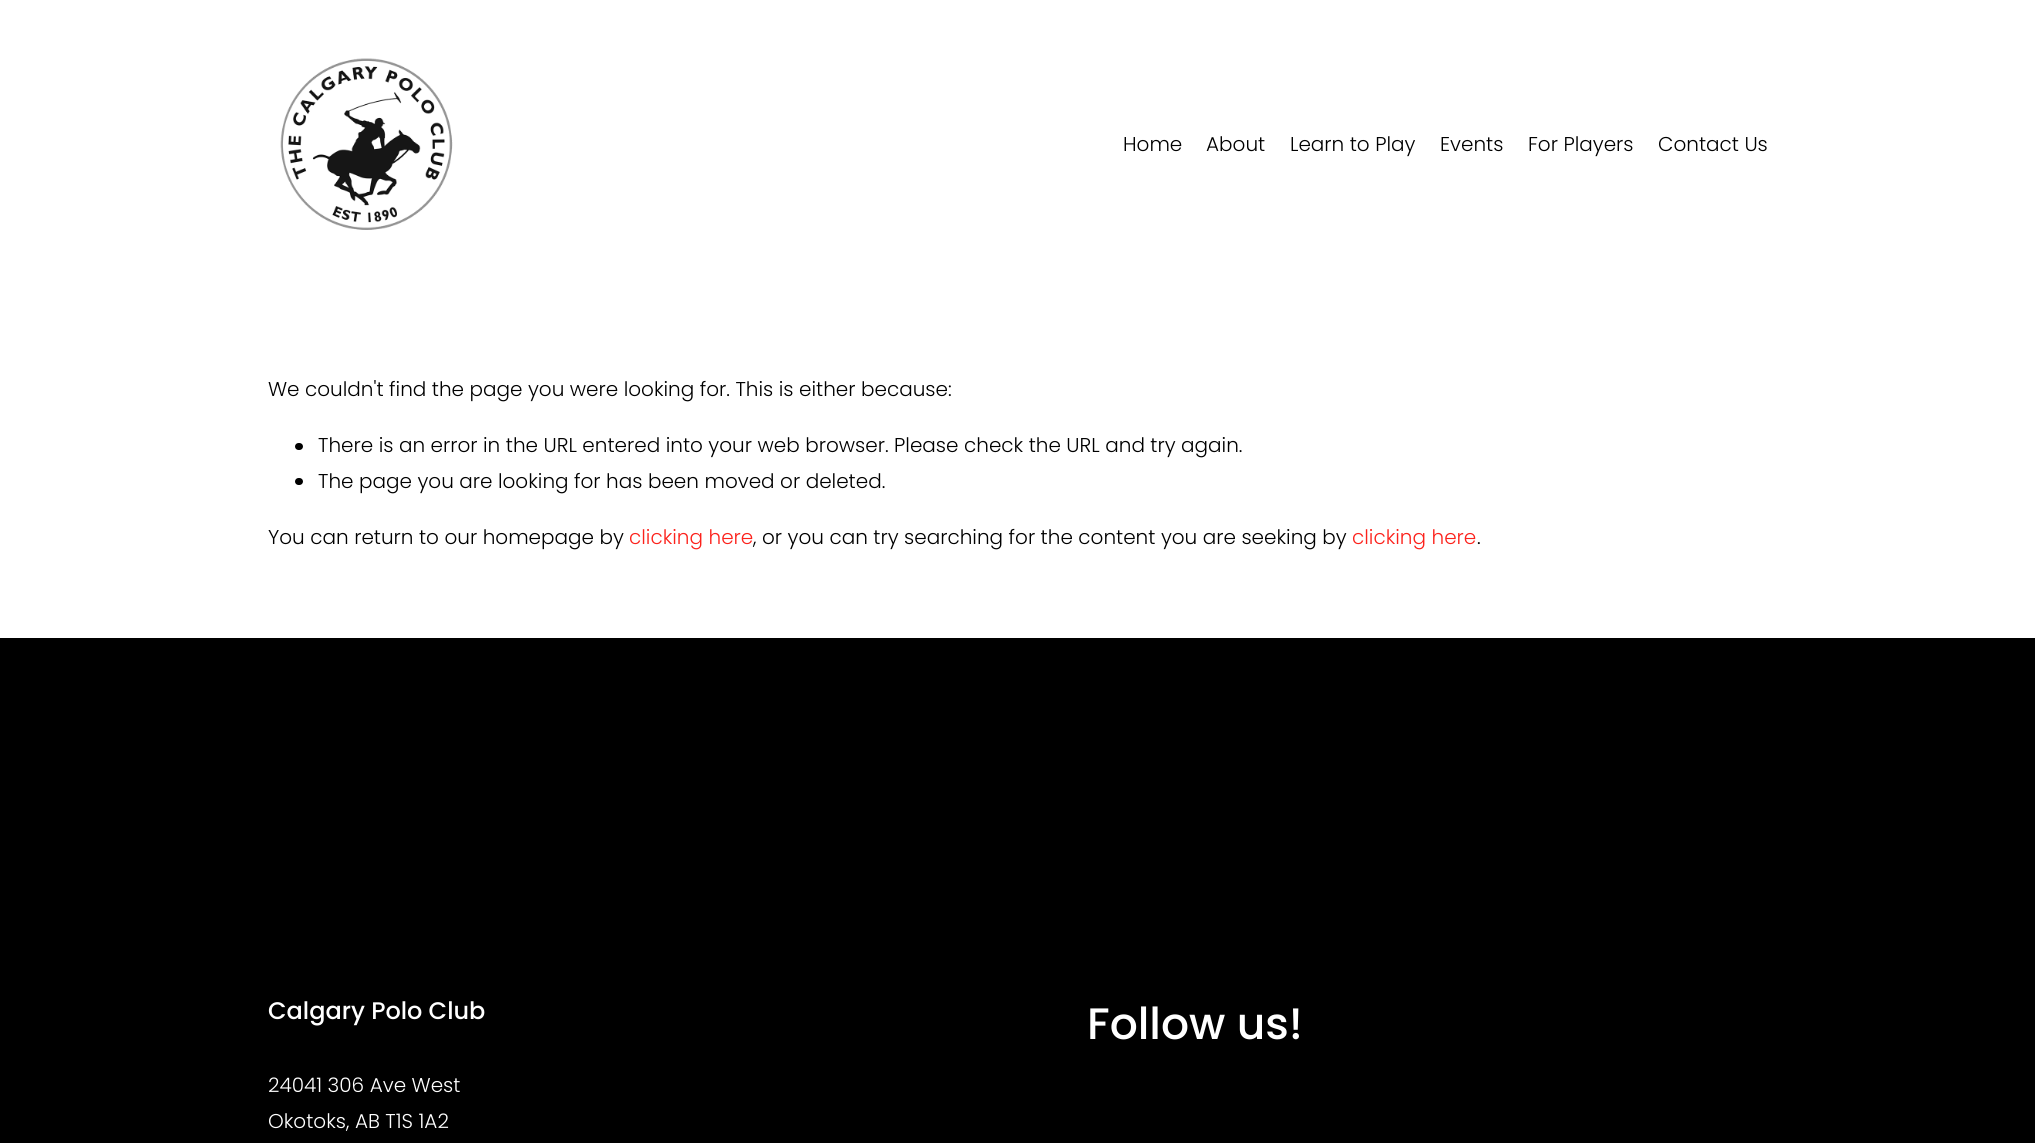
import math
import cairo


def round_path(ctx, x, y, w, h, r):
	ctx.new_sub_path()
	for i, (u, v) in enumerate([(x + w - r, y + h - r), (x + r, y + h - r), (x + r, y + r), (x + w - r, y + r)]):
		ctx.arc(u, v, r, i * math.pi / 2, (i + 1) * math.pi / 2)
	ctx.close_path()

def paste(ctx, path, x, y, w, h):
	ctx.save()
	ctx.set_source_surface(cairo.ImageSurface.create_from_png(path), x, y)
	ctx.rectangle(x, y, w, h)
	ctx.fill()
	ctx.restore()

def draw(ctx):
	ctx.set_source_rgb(1, 1, 1)
	ctx.paint()
	paste(ctx, 'media/1.png', 280, 58, 173, 172)
	ctx.select_font_face('Poppins Light')
	ctx.set_font_size(20)
	ctx.set_source_rgb(0, 0, 0)
	for x, y, s in [
		(1123, 151, 'Home'),
		(1206, 151, 'About'),
		(1290, 151, 'Learn to Play'),
		(1440, 151, 'Events'),
		(1528, 151, 'For Players'),
		(1658, 151, 'Contact Us'),
		(268, 396, 'We couldn\'t find the page you were looking for. This is either because:'),
	]:
		ctx.move_to(x, y)
		ctx.show_text(s)
	round_path(ctx, 295, 443, 8, 7, 3.5)
	ctx.fill()
	ctx.move_to(318, 452)
	ctx.show_text('There is an error in the URL entered into your web browser. Please check the URL and try again.')
	round_path(ctx, 295, 478, 8, 7, 3.5)
	ctx.fill()
	ctx.move_to(318, 488)
	ctx.show_text('The page you are looking for has been moved or deleted.')
	ctx.move_to(268, 544)
	ctx.show_text('You can return to our homepage by')
	ctx.set_source_rgb(0.988, 0.133, 0.11)
	ctx.move_to(629, 544)
	ctx.show_text('clicking here')
	ctx.set_source_rgb(0, 0, 0)
	ctx.move_to(753, 544)
	ctx.show_text(', or you can try searching for the content you are seeking by')
	ctx.set_source_rgb(0.988, 0.133, 0.11)
	ctx.move_to(1352, 544)
	ctx.show_text('clicking here')
	ctx.set_source_rgb(0, 0, 0)
	ctx.move_to(1477, 544)
	ctx.show_text('.')
	ctx.rectangle(0, 638, 2035, 505)
	ctx.fill()
	ctx.select_font_face('Poppins Medium')
	ctx.set_font_size(24)
	ctx.set_source_rgb(1, 1, 1)
	ctx.move_to(268, 1019)
	ctx.show_text('Calgary Polo Club')
	ctx.select_font_face('Poppins Light')
	ctx.set_font_size(20)
	ctx.move_to(268, 1092)
	ctx.show_text('24041 306 Ave West')
	ctx.move_to(268, 1128)
	ctx.show_text('Okotoks, AB T1S 1A2')
	ctx.select_font_face('Poppins Medium')
	ctx.set_font_size(44)
	ctx.move_to(1087, 1039)
	ctx.show_text('Follow us!')


surface = cairo.ImageSurface(cairo.FORMAT_RGB24, 2035, 1143)
ctx = cairo.Context(surface)
options = cairo.FontOptions()
options.set_hint_metrics(cairo.HINT_METRICS_OFF)
options.set_hint_style(cairo.HINT_STYLE_NONE)
ctx.set_font_options(options)
ctx.set_miter_limit(4)
draw(ctx)
surface.write_to_png('image.png')
